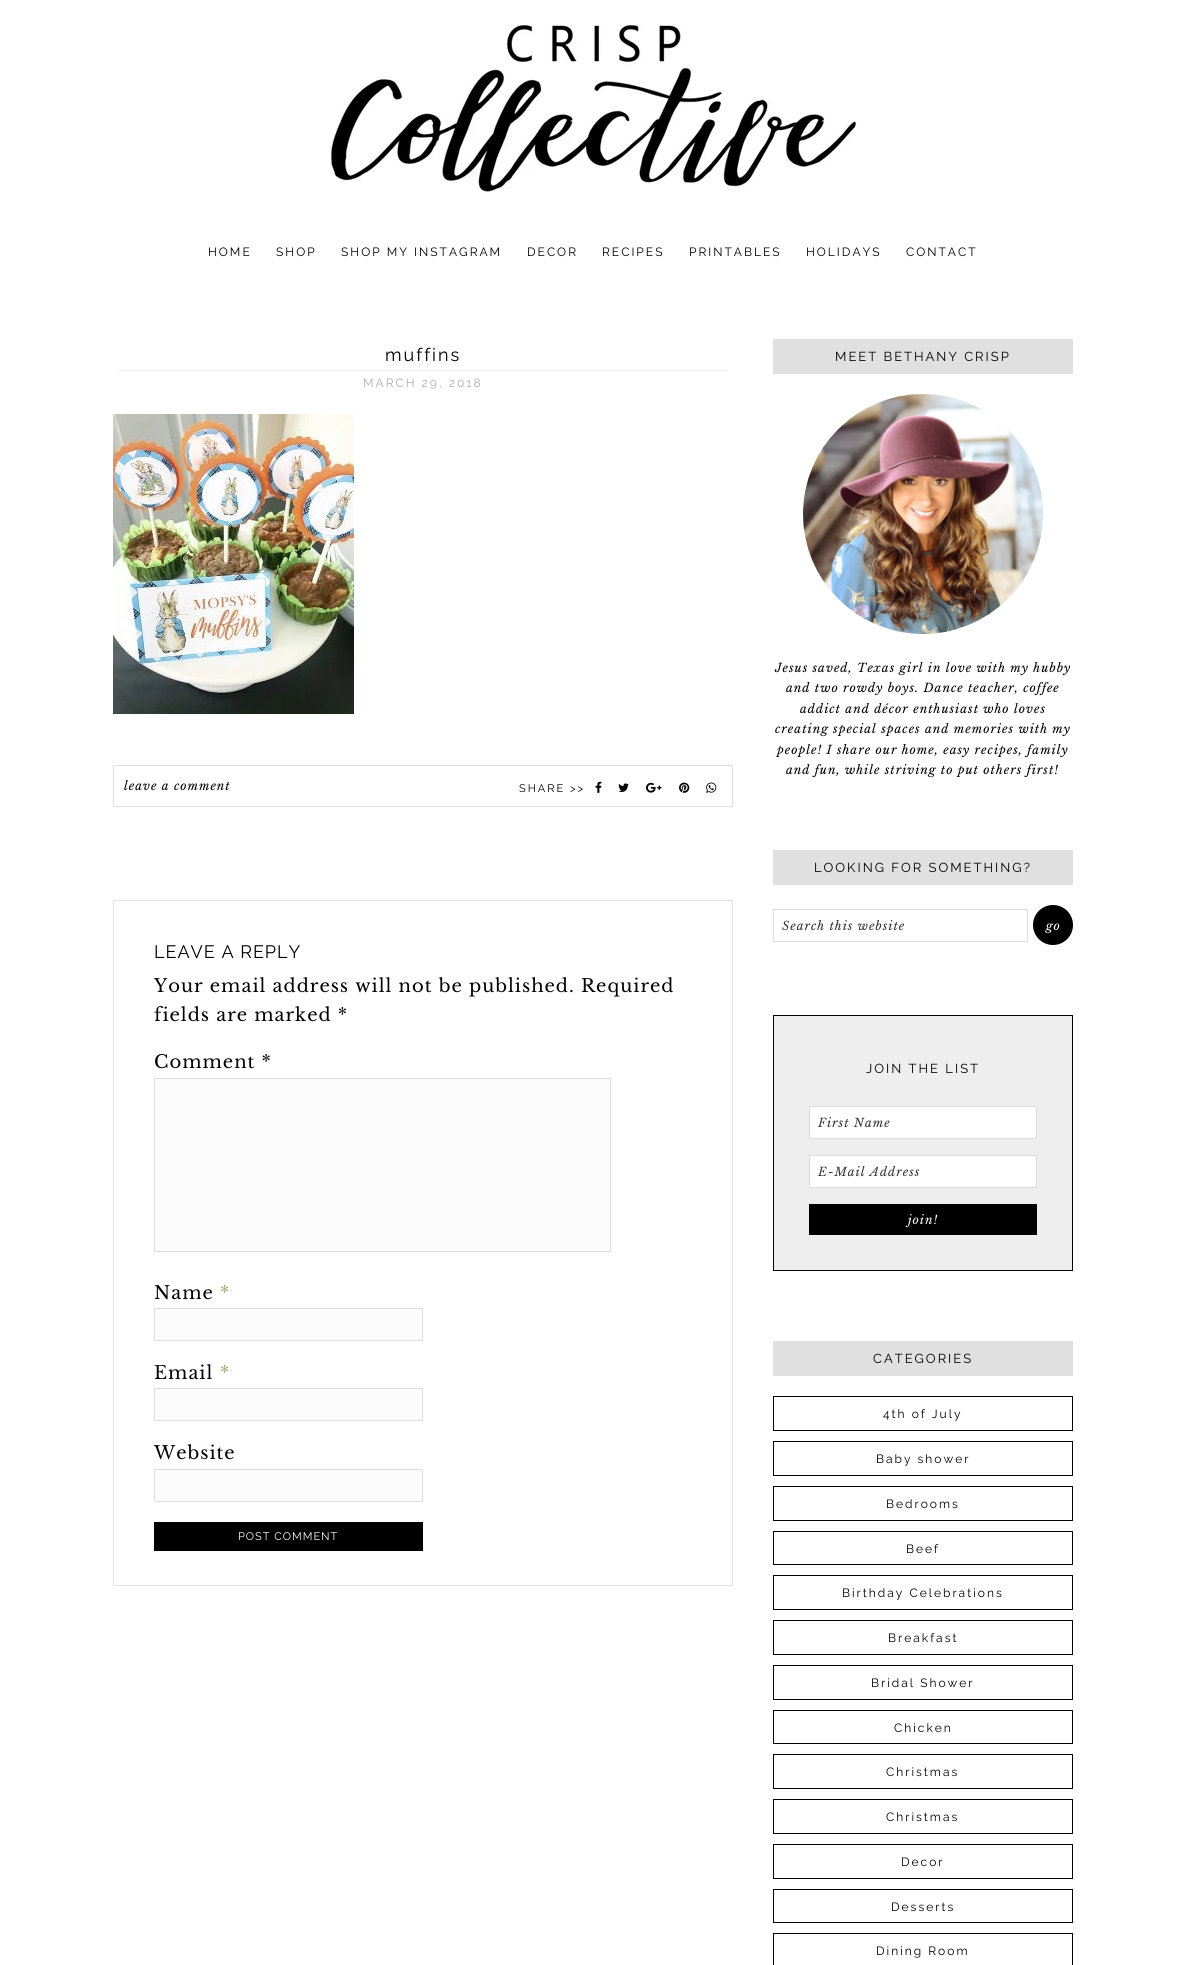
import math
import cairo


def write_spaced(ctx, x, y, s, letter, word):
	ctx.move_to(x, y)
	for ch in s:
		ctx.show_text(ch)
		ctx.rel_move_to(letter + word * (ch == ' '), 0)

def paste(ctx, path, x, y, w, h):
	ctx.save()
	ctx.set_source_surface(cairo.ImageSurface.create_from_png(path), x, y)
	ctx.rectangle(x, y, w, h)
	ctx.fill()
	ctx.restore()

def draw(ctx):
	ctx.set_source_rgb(1, 1, 1)
	ctx.paint()
	paste(ctx, 'media/1.png', 330, 24, 527, 168)
	ctx.select_font_face('Raleway')
	ctx.set_font_size(12)
	ctx.set_source_rgb(0, 0, 0)
	for x, y, s in [
		(208, 256, 'HOME'),
		(276, 256, 'SHOP'),
		(341, 256, 'SHOP MY INSTAGRAM'),
		(527, 256, 'DECOR'),
		(602, 256, 'RECIPES'),
		(689, 256, 'PRINTABLES'),
		(806, 256, 'HOLIDAYS'),
		(906, 256, 'CONTACT'),
	]:
		write_spaced(ctx, x, y, s, 2, 0)
	ctx.set_source_rgb(0.933, 0.933, 0.933)
	ctx.rectangle(118, 370, 610, 1)
	ctx.fill()
	ctx.set_font_size(18)
	ctx.set_source_rgb(0, 0, 0)
	write_spaced(ctx, 385, 361, 'muffins', 2, 0)
	ctx.set_font_size(12)
	ctx.set_source_rgb(0.678, 0.678, 0.678)
	write_spaced(ctx, 363, 387, 'MARCH 29, 2018', 2, 0)
	paste(ctx, 'media/2.png', 113, 414, 241, 300)
	ctx.rectangle(113.5, 765.5, 619, 41)
	ctx.set_source_rgb(0.878, 0.878, 0.878)
	ctx.set_line_width(1)
	ctx.stroke()
	ctx.select_font_face('Libre Baskerville', cairo.FONT_SLANT_ITALIC)
	ctx.set_source_rgb(0, 0, 0)
	write_spaced(ctx, 124, 790, 'leave a comment', 1, 0)
	ctx.select_font_face('Raleway')
	ctx.set_font_size(11)
	write_spaced(ctx, 519, 792, 'SHARE >>', 2, 0)
	paste(ctx, 'media/3.png', 595, 781, 7, 12)
	paste(ctx, 'media/4.png', 618, 783, 11, 9)
	paste(ctx, 'media/5.png', 646, 782, 16, 11)
	paste(ctx, 'media/6.png', 679, 782, 11, 11)
	paste(ctx, 'media/7.png', 706, 782, 11, 11)
	ctx.rectangle(113.5, 900.5, 619, 685)
	ctx.set_source_rgb(0.89, 0.89, 0.89)
	ctx.stroke()
	ctx.set_font_size(18)
	ctx.set_source_rgb(0, 0, 0)
	write_spaced(ctx, 154, 958, 'LEAVE A REPLY', 1, 0)
	ctx.select_font_face('Libre Baskerville')
	for x, y, s in [
		(154, 992, 'Your email address will not be published. Required'),
		(154, 1021, 'fields are marked *'),
		(154, 1068, 'Comment *'),
	]:
		write_spaced(ctx, x, y, s, 1, 0)
	ctx.set_source_rgb(0.988, 0.988, 0.988)
	ctx.rectangle(154.5, 1078.5, 456, 173)
	ctx.fill_preserve()
	ctx.set_source_rgb(0.867, 0.867, 0.867)
	ctx.stroke()
	ctx.set_source_rgb(0, 0, 0)
	write_spaced(ctx, 154, 1299, 'Name', 1, 0)
	ctx.set_source_rgb(0.69, 0.608, 0.435)
	write_spaced(ctx, 220, 1299, '*', 1, 0)
	ctx.set_source_rgb(0.988, 0.988, 0.988)
	ctx.rectangle(154.5, 1308.5, 268, 32)
	ctx.fill_preserve()
	ctx.set_source_rgb(0.867, 0.867, 0.867)
	ctx.stroke()
	ctx.set_source_rgb(0, 0, 0)
	write_spaced(ctx, 154, 1379, 'Email', 1, 0)
	ctx.set_source_rgb(0.69, 0.608, 0.435)
	write_spaced(ctx, 220, 1379, '*', 1, 0)
	ctx.set_source_rgb(0.988, 0.988, 0.988)
	ctx.rectangle(154.5, 1388.5, 268, 32)
	ctx.fill_preserve()
	ctx.set_source_rgb(0.867, 0.867, 0.867)
	ctx.stroke()
	ctx.set_source_rgb(0, 0, 0)
	write_spaced(ctx, 154, 1459, 'Website', 1, 0)
	ctx.set_source_rgb(0.988, 0.988, 0.988)
	ctx.rectangle(154.5, 1469.5, 268, 32)
	ctx.fill_preserve()
	ctx.set_source_rgb(0.867, 0.867, 0.867)
	ctx.stroke()
	ctx.set_source_rgb(0, 0, 0)
	ctx.rectangle(154, 1522, 269, 29)
	ctx.fill()
	ctx.select_font_face('Raleway')
	ctx.set_font_size(11)
	ctx.set_source_rgb(1, 1, 1)
	write_spaced(ctx, 238, 1540, 'POST COMMENT', 1, 0)
	ctx.set_source_rgb(0.878, 0.878, 0.878)
	ctx.rectangle(773, 339, 300, 35)
	ctx.fill()
	ctx.set_font_size(13)
	ctx.set_source_rgb(0, 0, 0)
	write_spaced(ctx, 835, 361, 'MEET BETHANY CRISP', 2, 0)
	paste(ctx, 'media/8.png', 803, 394, 240, 240)
	ctx.select_font_face('Libre Baskerville', cairo.FONT_SLANT_ITALIC)
	ctx.set_font_size(12)
	for x, y, s in [
		(775, 672, 'Jesus saved, Texas girl in love with my hubby'),
		(786, 692, 'and two rowdy boys. Dance teacher, coffee'),
		(800, 713, 'addict and décor enthusiast who loves'),
		(775, 733, 'creating special spaces and memories with my'),
		(777, 754, 'people! I share our home, easy recipes, family'),
		(786, 774, 'and fun, while striving to put others first!'),
	]:
		write_spaced(ctx, x, y, s, 1, 0)
	ctx.set_source_rgb(0.878, 0.878, 0.878)
	ctx.rectangle(773, 850, 300, 35)
	ctx.fill()
	ctx.select_font_face('Raleway')
	ctx.set_font_size(13)
	ctx.set_source_rgb(0, 0, 0)
	write_spaced(ctx, 814, 872, 'LOOKING FOR SOMETHING?', 2, 0)
	ctx.rectangle(773.5, 909.5, 254, 32)
	ctx.set_source_rgb(0.867, 0.867, 0.867)
	ctx.stroke()
	ctx.select_font_face('Libre Baskerville', cairo.FONT_SLANT_ITALIC)
	ctx.set_font_size(12)
	ctx.set_source_rgb(0.2, 0.2, 0.2)
	write_spaced(ctx, 782, 930, 'Search this website', 1, 0)
	ctx.set_source_rgb(0, 0, 0)
	ctx.new_path()
	ctx.arc(1053, 925, 20, 0, 2 * math.pi)
	ctx.fill()
	ctx.set_source_rgb(1, 1, 1)
	write_spaced(ctx, 1046, 930, 'go', 1, 0)
	ctx.set_source_rgb(0.933, 0.933, 0.933)
	ctx.rectangle(773.5, 1015.5, 299, 255)
	ctx.fill_preserve()
	ctx.set_source_rgb(0, 0, 0)
	ctx.stroke()
	ctx.select_font_face('Raleway')
	ctx.set_font_size(13)
	write_spaced(ctx, 866, 1073, 'JOIN THE LIST', 2, 0)
	ctx.set_source_rgb(1, 1, 1)
	ctx.rectangle(809.5, 1106.5, 227, 32)
	ctx.fill_preserve()
	ctx.set_source_rgb(0.867, 0.867, 0.867)
	ctx.stroke()
	ctx.select_font_face('Libre Baskerville', cairo.FONT_SLANT_ITALIC)
	ctx.set_font_size(12)
	ctx.set_source_rgb(0.2, 0.2, 0.2)
	write_spaced(ctx, 818, 1127, 'First Name', 1, 0)
	ctx.set_source_rgb(1, 1, 1)
	ctx.rectangle(809.5, 1155.5, 227, 32)
	ctx.fill_preserve()
	ctx.set_source_rgb(0.867, 0.867, 0.867)
	ctx.stroke()
	ctx.set_source_rgb(0.2, 0.2, 0.2)
	write_spaced(ctx, 818, 1176, 'E-Mail Address', 1, 0)
	ctx.set_source_rgb(0, 0, 0)
	ctx.rectangle(809, 1204, 228, 31)
	ctx.fill()
	ctx.set_source_rgb(1, 1, 1)
	write_spaced(ctx, 908, 1224, 'join!', 1, 0)
	ctx.set_source_rgb(0.878, 0.878, 0.878)
	ctx.rectangle(773, 1341, 300, 35)
	ctx.fill()
	ctx.select_font_face('Raleway')
	ctx.set_font_size(13)
	ctx.set_source_rgb(0, 0, 0)
	write_spaced(ctx, 873, 1363, 'CATEGORIES', 2, 0)
	ctx.rectangle(773.5, 1396.5, 299, 34)
	ctx.stroke()
	ctx.set_font_size(12)
	write_spaced(ctx, 883, 1418, '4th of July', 2, 0)
	ctx.rectangle(773.5, 1441.5, 299, 34)
	ctx.stroke()
	write_spaced(ctx, 876, 1463, 'Baby shower', 2, 0)
	ctx.rectangle(773.5, 1486.5, 299, 34)
	ctx.stroke()
	write_spaced(ctx, 886, 1508, 'Bedrooms', 2, 0)
	ctx.rectangle(773.5, 1531.5, 299, 33)
	ctx.stroke()
	write_spaced(ctx, 906, 1553, 'Beef', 2, 0)
	ctx.rectangle(773.5, 1575.5, 299, 34)
	ctx.stroke()
	write_spaced(ctx, 842, 1597, 'Birthday Celebrations', 2, 0)
	ctx.rectangle(773.5, 1620.5, 299, 34)
	ctx.stroke()
	write_spaced(ctx, 888, 1642, 'Breakfast', 2, 0)
	ctx.rectangle(773.5, 1665.5, 299, 34)
	ctx.stroke()
	write_spaced(ctx, 871, 1687, 'Bridal Shower', 2, 0)
	ctx.rectangle(773.5, 1710.5, 299, 33)
	ctx.stroke()
	write_spaced(ctx, 894, 1732, 'Chicken', 2, 0)
	ctx.rectangle(773.5, 1754.5, 299, 34)
	ctx.stroke()
	write_spaced(ctx, 886, 1776, 'Christmas', 2, 0)
	ctx.rectangle(773.5, 1799.5, 299, 34)
	ctx.stroke()
	write_spaced(ctx, 886, 1821, 'Christmas', 2, 0)
	ctx.rectangle(773.5, 1844.5, 299, 34)
	ctx.stroke()
	write_spaced(ctx, 901, 1866, 'Decor', 2, 0)
	ctx.rectangle(773.5, 1889.5, 299, 33)
	ctx.stroke()
	write_spaced(ctx, 891, 1911, 'Desserts', 2, 0)
	ctx.rectangle(773.5, 1933.5, 299, 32)
	ctx.stroke()
	write_spaced(ctx, 876, 1955, 'Dining Room', 2, 0)


surface = cairo.ImageSurface(cairo.FORMAT_RGB24, 1186, 1965)
ctx = cairo.Context(surface)
options = cairo.FontOptions()
options.set_hint_metrics(cairo.HINT_METRICS_OFF)
options.set_hint_style(cairo.HINT_STYLE_NONE)
ctx.set_font_options(options)
ctx.set_miter_limit(4)
draw(ctx)
surface.write_to_png('image.png')
